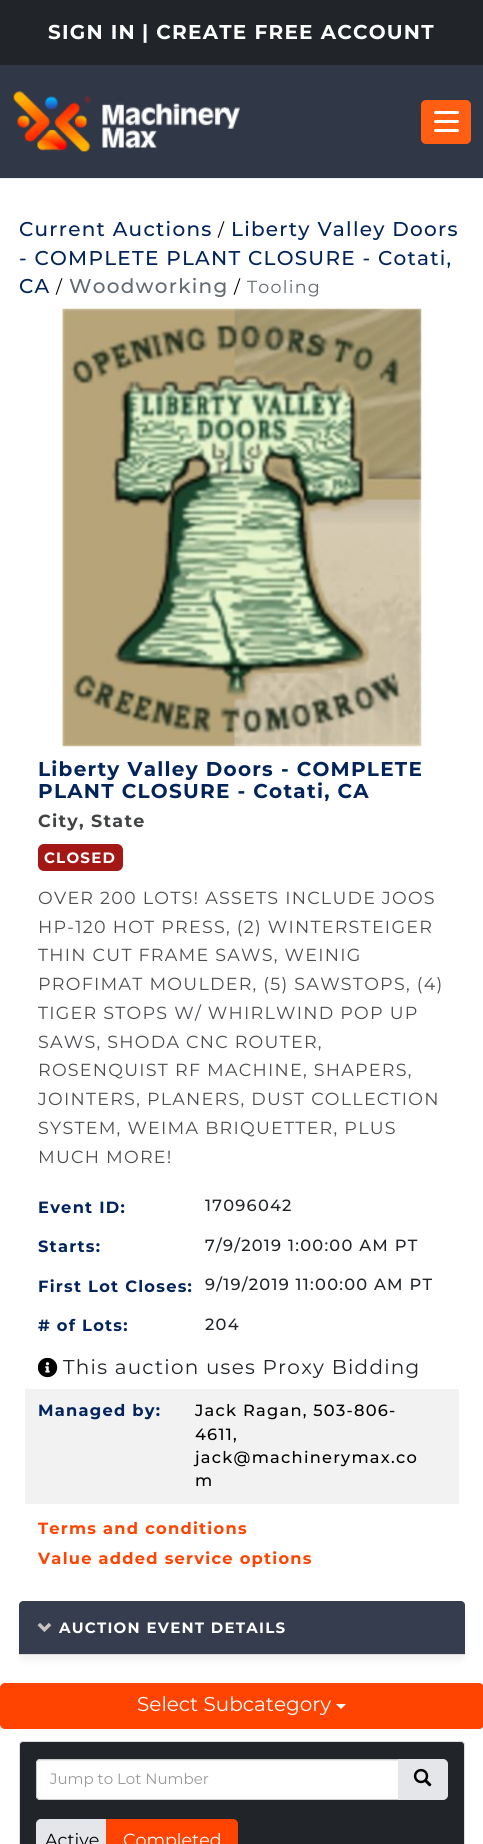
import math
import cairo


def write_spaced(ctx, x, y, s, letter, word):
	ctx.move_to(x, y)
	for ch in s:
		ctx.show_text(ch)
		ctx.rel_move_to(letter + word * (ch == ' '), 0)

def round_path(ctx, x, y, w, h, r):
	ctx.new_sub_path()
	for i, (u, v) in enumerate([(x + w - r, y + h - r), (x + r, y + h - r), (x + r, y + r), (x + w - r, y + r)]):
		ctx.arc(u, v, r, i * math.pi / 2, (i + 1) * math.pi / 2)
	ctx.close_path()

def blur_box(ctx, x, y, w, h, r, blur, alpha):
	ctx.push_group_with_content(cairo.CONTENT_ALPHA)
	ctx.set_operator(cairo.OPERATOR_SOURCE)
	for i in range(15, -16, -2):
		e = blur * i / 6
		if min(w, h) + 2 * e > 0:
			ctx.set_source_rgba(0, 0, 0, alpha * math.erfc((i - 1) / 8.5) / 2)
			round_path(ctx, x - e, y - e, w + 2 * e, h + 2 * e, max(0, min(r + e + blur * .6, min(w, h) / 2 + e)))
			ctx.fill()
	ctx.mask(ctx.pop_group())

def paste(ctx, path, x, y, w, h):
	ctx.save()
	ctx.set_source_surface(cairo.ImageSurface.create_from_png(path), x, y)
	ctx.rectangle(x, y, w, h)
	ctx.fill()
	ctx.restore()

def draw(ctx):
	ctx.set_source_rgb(1, 1, 1)
	ctx.paint()
	ctx.set_source_rgb(0.188, 0.216, 0.278)
	ctx.rectangle(0, 65, 483, 113)
	ctx.fill()
	ctx.set_source_rgb(0.129, 0.145, 0.161)
	ctx.rectangle(0, 0, 483, 65)
	ctx.fill()
	ctx.select_font_face('Montserrat', cairo.FONT_SLANT_NORMAL, cairo.FONT_WEIGHT_BOLD)
	ctx.set_font_size(20)
	ctx.set_source_rgb(1, 1, 1)
	write_spaced(ctx, 48, 39, 'SIGN IN', 1.25, 0)
	write_spaced(ctx, 142, 39, '| CREATE FREE ACCOUNT', 1.25, 0)
	ctx.set_source_rgb(0.922, 0.922, 0.922)
	ctx.rectangle(0, 178, 483, 1)
	ctx.fill()
	paste(ctx, 'media/1.png', 13, 91, 227, 62)
	ctx.set_source_rgb(1, 0.369, 0.078)
	round_path(ctx, 421, 100, 50, 44, 5)
	ctx.fill()
	ctx.set_source_rgb(1, 1, 1)
	round_path(ctx, 434, 111, 25, 3, 1.5)
	ctx.fill()
	round_path(ctx, 434, 120, 25, 3, 1.5)
	ctx.fill()
	round_path(ctx, 434, 129, 25, 3, 1.5)
	ctx.fill()
	ctx.select_font_face('Montserrat Medium')
	ctx.set_source_rgb(0.008, 0.141, 0.357)
	write_spaced(ctx, 19, 236, 'Current Auctions', 1.25, 0)
	ctx.select_font_face('Montserrat')
	ctx.set_font_size(17.5)
	ctx.set_source_rgb(0, 0, 0)
	write_spaced(ctx, 218, 236, '/', 1.25, 0)
	ctx.select_font_face('Montserrat Medium')
	ctx.set_font_size(20)
	ctx.set_source_rgb(0.008, 0.141, 0.357)
	for x, y, s in [
		(231, 236, 'Liberty Valley Doors'),
		(19, 265, '- COMPLETE PLANT CLOSURE - Cotati,'),
		(19, 293, 'CA'),
	]:
		write_spaced(ctx, x, y, s, 1.25, 0)
	ctx.select_font_face('Montserrat')
	ctx.set_font_size(17.5)
	ctx.set_source_rgb(0, 0, 0)
	write_spaced(ctx, 56, 293, '/', 1.25, 0)
	ctx.select_font_face('Montserrat Medium')
	ctx.set_font_size(20)
	ctx.set_source_rgb(0.384, 0.416, 0.447)
	write_spaced(ctx, 69, 293, 'Woodworking', 1.25, 0)
	ctx.select_font_face('Montserrat')
	ctx.set_font_size(17.5)
	ctx.set_source_rgb(0, 0, 0)
	write_spaced(ctx, 234, 293, '/', 1.25, 0)
	ctx.set_source_rgb(0.384, 0.416, 0.447)
	write_spaced(ctx, 247, 293, 'Tooling', 1.25, 0)
	paste(ctx, 'media/2.png', 62, 308, 360, 439)
	ctx.select_font_face('Montserrat', cairo.FONT_SLANT_NORMAL, cairo.FONT_WEIGHT_BOLD)
	ctx.set_font_size(20)
	ctx.set_source_rgb(0.008, 0.141, 0.357)
	write_spaced(ctx, 38, 776, 'Liberty Valley Doors - COMPLETE', 1.25, 0)
	write_spaced(ctx, 38, 798, 'PLANT CLOSURE - Cotati, CA', 1.25, 0)
	ctx.set_font_size(17.5)
	ctx.set_source_rgb(0.255, 0.263, 0.271)
	write_spaced(ctx, 38, 827, 'City, State', 1.25, 0)
	ctx.set_source_rgb(0.639, 0.094, 0.082)
	round_path(ctx, 38, 844, 85, 27, 6)
	ctx.fill()
	ctx.set_font_size(15)
	ctx.set_source_rgb(1, 1, 1)
	write_spaced(ctx, 44, 863, 'CLOSED', 1.25, 0)
	ctx.select_font_face('Montserrat')
	ctx.set_font_size(17.5)
	ctx.set_source_rgb(0.302, 0.302, 0.318)
	for x, y, s in [
		(38, 904, 'OVER 200 LOTS! ASSETS INCLUDE JOOS'),
		(38, 933, 'HP-120 HOT PRESS, (2) WINTERSTEIGER'),
		(38, 961, 'THIN CUT FRAME SAWS, WEINIG'),
		(38, 990, 'PROFIMAT MOULDER, (5) SAWSTOPS, (4)'),
		(38, 1019, 'TIGER STOPS W/ WHIRLWIND POP UP'),
		(38, 1048, 'SAWS, SHODA CNC ROUTER,'),
		(38, 1076, 'ROSENQUIST RF MACHINE, SHAPERS,'),
		(38, 1105, 'JOINTERS, PLANERS, DUST COLLECTION'),
		(38, 1134, 'SYSTEM, WEIMA BRIQUETTER, PLUS'),
		(38, 1163, 'MUCH MORE!'),
	]:
		write_spaced(ctx, x, y, s, 1.25, 0)
	ctx.select_font_face('Montserrat', cairo.FONT_SLANT_NORMAL, cairo.FONT_WEIGHT_BOLD)
	ctx.set_font_size(16.25)
	ctx.set_source_rgb(0.008, 0.141, 0.357)
	write_spaced(ctx, 38, 1213, 'Event ID:', 1.25, 0)
	ctx.select_font_face('Montserrat Medium')
	ctx.set_source_rgb(0.129, 0.145, 0.161)
	write_spaced(ctx, 205, 1211, '17096042', 1.25, 0)
	ctx.select_font_face('Montserrat', cairo.FONT_SLANT_NORMAL, cairo.FONT_WEIGHT_BOLD)
	ctx.set_source_rgb(0.008, 0.141, 0.357)
	write_spaced(ctx, 38, 1252, 'Starts:', 1.25, 0)
	ctx.select_font_face('Montserrat Medium')
	ctx.set_source_rgb(0.129, 0.145, 0.161)
	write_spaced(ctx, 205, 1251, '7/9/2019 1:00:00 AM PT', 1.25, 0)
	ctx.select_font_face('Montserrat', cairo.FONT_SLANT_NORMAL, cairo.FONT_WEIGHT_BOLD)
	ctx.set_source_rgb(0.008, 0.141, 0.357)
	write_spaced(ctx, 38, 1292, 'First Lot Closes:', 1.25, 0)
	ctx.select_font_face('Montserrat Medium')
	ctx.set_source_rgb(0.129, 0.145, 0.161)
	write_spaced(ctx, 205, 1290, '9/19/2019 11:00:00 AM PT', 1.25, 0)
	ctx.select_font_face('Montserrat', cairo.FONT_SLANT_NORMAL, cairo.FONT_WEIGHT_BOLD)
	ctx.set_source_rgb(0.008, 0.141, 0.357)
	write_spaced(ctx, 38, 1331, '# of Lots:', 1.25, 0)
	ctx.select_font_face('Montserrat Medium')
	ctx.set_source_rgb(0.129, 0.145, 0.161)
	write_spaced(ctx, 205, 1330, '204', 1.25, 0)
	paste(ctx, 'media/3.png', 38, 1358, 20, 20)
	ctx.select_font_face('Montserrat')
	ctx.set_font_size(20)
	write_spaced(ctx, 63, 1374, 'This auction uses Proxy Bidding', 1.25, 0)
	ctx.set_source_rgb(0.949, 0.949, 0.949)
	ctx.rectangle(25, 1389, 434, 115)
	ctx.fill()
	ctx.select_font_face('Montserrat', cairo.FONT_SLANT_NORMAL, cairo.FONT_WEIGHT_BOLD)
	ctx.set_font_size(16.25)
	ctx.set_source_rgb(0.008, 0.141, 0.357)
	write_spaced(ctx, 38, 1416, 'Managed by:', 1.25, 0)
	ctx.select_font_face('Montserrat Medium')
	ctx.set_source_rgb(0, 0, 0)
	for x, y, s in [
		(195, 1416, 'Jack Ragan, 503-806-'),
		(195, 1440, '4611,'),
		(195, 1463, 'jack@machinerymax.co'),
		(195, 1486, 'm'),
	]:
		write_spaced(ctx, x, y, s, 1.25, 0)
	ctx.select_font_face('Montserrat', cairo.FONT_SLANT_NORMAL, cairo.FONT_WEIGHT_BOLD)
	ctx.set_source_rgb(1, 0.267, 0.008)
	write_spaced(ctx, 38, 1534, 'Terms and conditions', 1.25, 0)
	write_spaced(ctx, 38, 1564, 'Value added service options', 1.25, 0)
	ctx.set_source_rgb(0, 0, 0)
	blur_box(ctx, 19, 1608, 446, 53, 5, 3, 0.05)
	ctx.set_source_rgb(0.212, 0.239, 0.31)
	ctx.new_path()
	ctx.move_to(23, 1601)
	ctx.line_to(461, 1601)
	ctx.curve_to(463, 1601, 465, 1603, 465, 1605)
	ctx.line_to(465, 1655)
	ctx.line_to(19, 1655)
	ctx.line_to(19, 1605)
	ctx.curve_to(19, 1603, 21, 1601, 23, 1601)
	ctx.close_path()
	ctx.fill()
	ctx.set_source_rgb(0.867, 0.867, 0.867)
	ctx.rectangle(19, 1654, 446, 1)
	ctx.fill()
	paste(ctx, 'media/4.png', 37, 1622, 15, 10)
	ctx.set_font_size(15)
	ctx.set_source_rgb(1, 1, 1)
	write_spaced(ctx, 59, 1633, 'AUCTION EVENT DETAILS', 1.25, 0)
	ctx.set_source_rgb(1, 0.267, 0.008)
	round_path(ctx, 0.5, 1683.5, 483, 45, 4.5)
	ctx.fill_preserve()
	ctx.set_line_width(1)
	ctx.stroke()
	ctx.select_font_face('Montserrat')
	ctx.set_font_size(20)
	ctx.set_source_rgb(1, 1, 1)
	ctx.move_to(137, 1711)
	ctx.show_text('Select Subcategory')
	ctx.new_path()
	ctx.move_to(336, 1704)
	ctx.line_to(346, 1704)
	ctx.line_to(341, 1709)
	ctx.close_path()
	ctx.fill()
	ctx.set_source_rgb(0.129, 0.145, 0.161)
	round_path(ctx, 19.5, 1741.5, 445, 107, 3.5)
	ctx.fill_preserve()
	ctx.set_source_rgb(0.867, 0.867, 0.867)
	ctx.stroke()
	ctx.set_source_rgb(1, 1, 1)
	ctx.new_path()
	ctx.move_to(40, 1759)
	ctx.line_to(399, 1759)
	ctx.line_to(399, 1800)
	ctx.line_to(40, 1800)
	ctx.curve_to(38, 1800, 36, 1798, 36, 1796)
	ctx.line_to(36, 1763)
	ctx.curve_to(36, 1761, 38, 1759, 40, 1759)
	ctx.close_path()
	ctx.fill()
	ctx.set_source_rgb(0.925, 0.925, 0.925)
	ctx.new_path()
	ctx.move_to(40, 1761)
	ctx.line_to(398, 1761)
	ctx.line_to(398, 1760)
	ctx.line_to(40, 1760)
	ctx.curve_to(38, 1760, 38, 1762, 38, 1764)
	ctx.curve_to(38, 1762, 39, 1761, 40, 1761)
	ctx.close_path()
	ctx.fill()
	ctx.new_path()
	ctx.move_to(40, 1759.5)
	ctx.line_to(398.5, 1759.5)
	ctx.line_to(398.5, 1799.5)
	ctx.line_to(40, 1799.5)
	ctx.curve_to(38, 1799.5, 36.5, 1798, 36.5, 1796)
	ctx.line_to(36.5, 1763)
	ctx.curve_to(36.5, 1761, 38, 1759.5, 40, 1759.5)
	ctx.close_path()
	ctx.set_source_rgb(0.8, 0.8, 0.8)
	ctx.stroke()
	ctx.set_font_size(15)
	ctx.set_source_rgb(0.6, 0.6, 0.6)
	ctx.move_to(50, 1784)
	ctx.show_text('Jump to Lot Number')
	ctx.set_source_rgb(0.898, 0.902, 0.914)
	ctx.new_path()
	ctx.move_to(398.5, 1759.5)
	ctx.line_to(443, 1759.5)
	ctx.curve_to(445.5, 1759.5, 447.5, 1761.5, 447.5, 1764)
	ctx.line_to(447.5, 1795)
	ctx.curve_to(447.5, 1797.5, 445.5, 1799.5, 443, 1799.5)
	ctx.line_to(398.5, 1799.5)
	ctx.close_path()
	ctx.fill_preserve()
	ctx.stroke()
	paste(ctx, 'media/5.png', 413, 1768, 19, 19)
	ctx.new_path()
	ctx.move_to(41, 1819.5)
	ctx.line_to(107.5, 1819.5)
	ctx.line_to(107.5, 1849.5)
	ctx.line_to(41, 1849.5)
	ctx.curve_to(38.5, 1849.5, 36.5, 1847.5, 36.5, 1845)
	ctx.line_to(36.5, 1824)
	ctx.curve_to(36.5, 1821.5, 38.5, 1819.5, 41, 1819.5)
	ctx.close_path()
	ctx.fill_preserve()
	ctx.stroke()
	ctx.set_font_size(17.5)
	ctx.set_source_rgb(0, 0, 0)
	ctx.move_to(45, 1846)
	ctx.show_text('Active')
	ctx.set_source_rgb(1, 0.267, 0.008)
	ctx.new_path()
	ctx.move_to(106.5, 1819.5)
	ctx.line_to(233, 1819.5)
	ctx.curve_to(235.5, 1819.5, 237.5, 1821.5, 237.5, 1824)
	ctx.line_to(237.5, 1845)
	ctx.curve_to(237.5, 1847.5, 235.5, 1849.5, 233, 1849.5)
	ctx.line_to(106.5, 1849.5)
	ctx.close_path()
	ctx.fill_preserve()
	ctx.stroke()
	ctx.set_source_rgb(1, 1, 1)
	ctx.move_to(123, 1846)
	ctx.show_text('Completed')


surface = cairo.ImageSurface(cairo.FORMAT_RGB24, 483, 1844)
ctx = cairo.Context(surface)
options = cairo.FontOptions()
options.set_hint_metrics(cairo.HINT_METRICS_OFF)
options.set_hint_style(cairo.HINT_STYLE_NONE)
ctx.set_font_options(options)
ctx.set_miter_limit(4)
draw(ctx)
surface.write_to_png('image.png')
